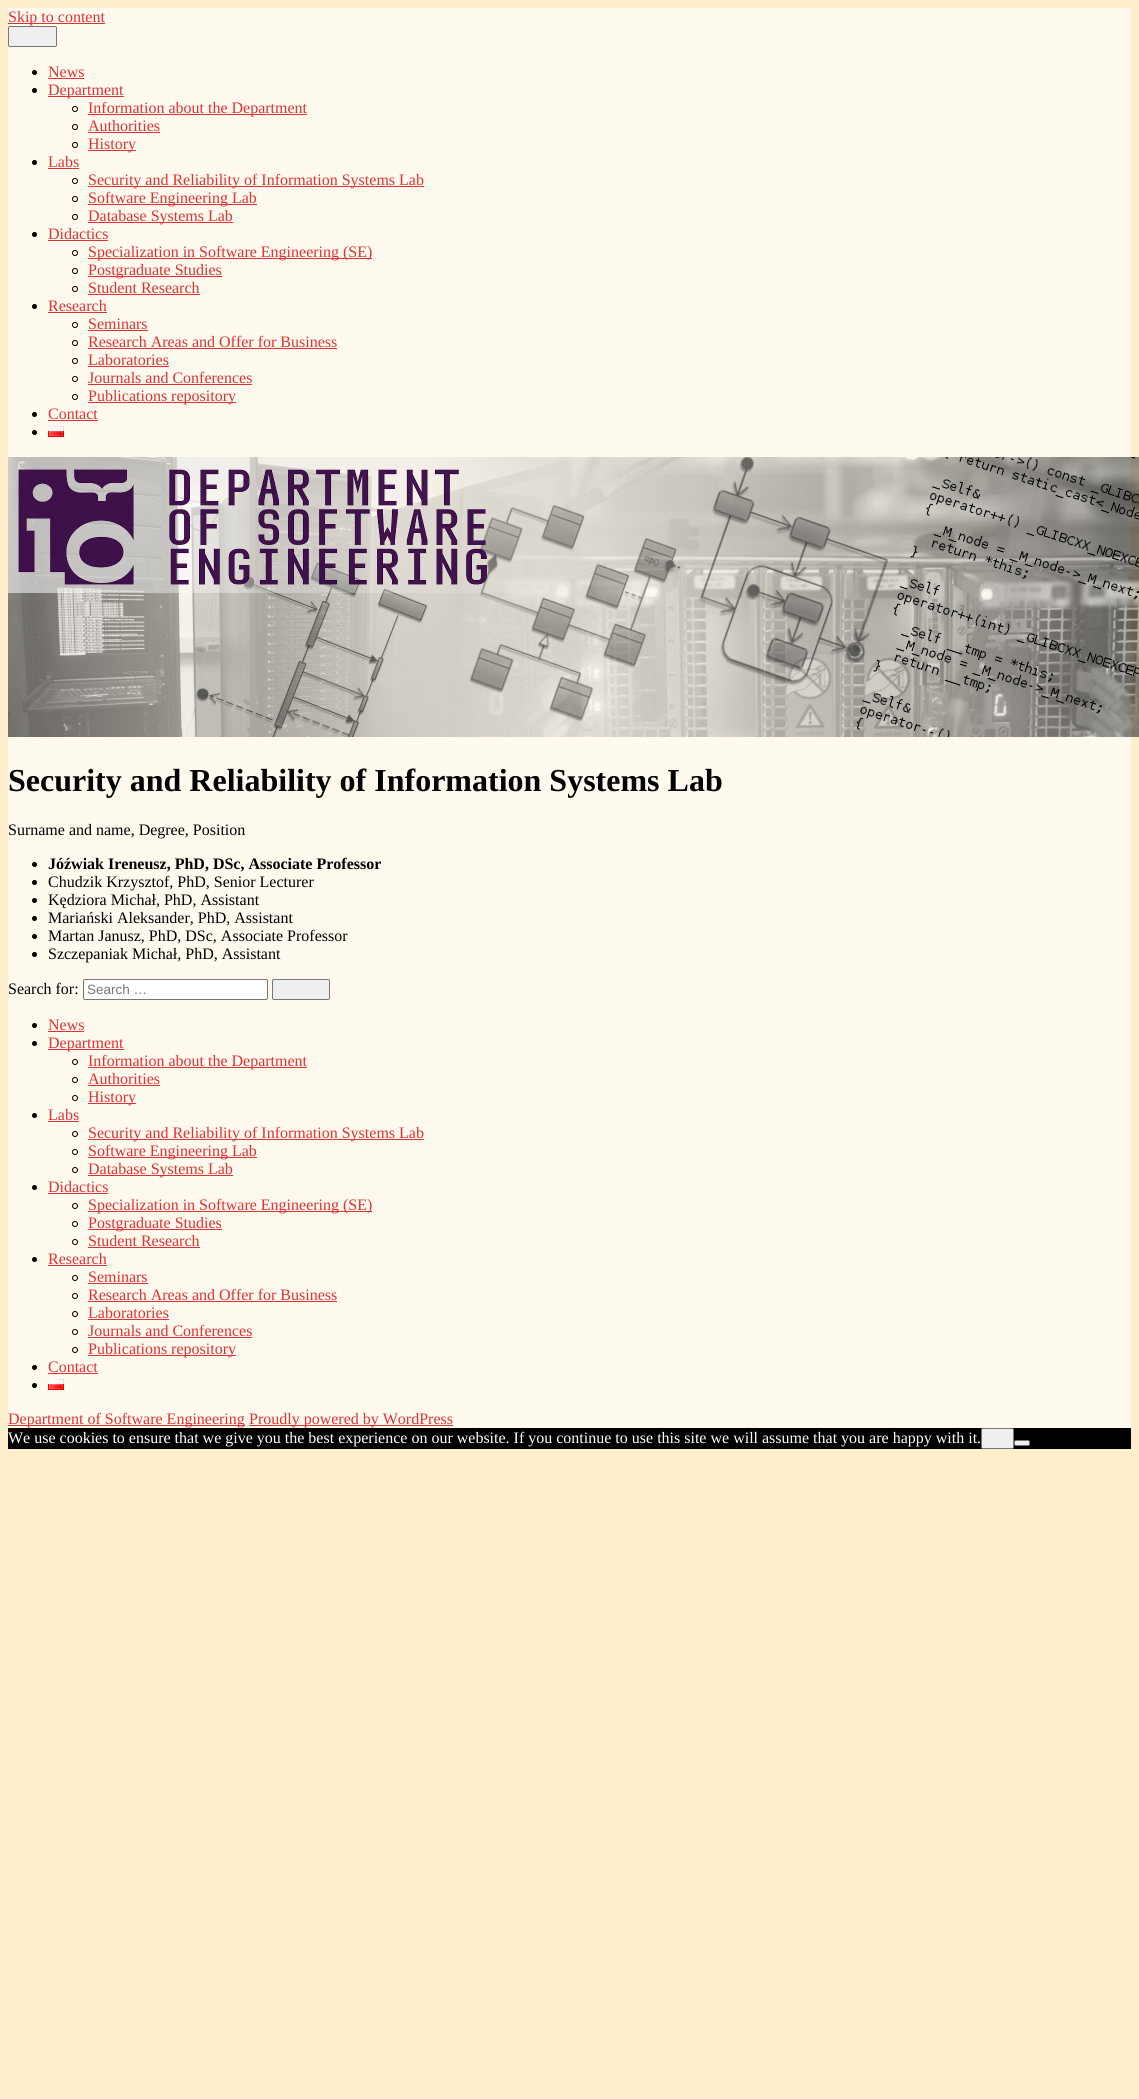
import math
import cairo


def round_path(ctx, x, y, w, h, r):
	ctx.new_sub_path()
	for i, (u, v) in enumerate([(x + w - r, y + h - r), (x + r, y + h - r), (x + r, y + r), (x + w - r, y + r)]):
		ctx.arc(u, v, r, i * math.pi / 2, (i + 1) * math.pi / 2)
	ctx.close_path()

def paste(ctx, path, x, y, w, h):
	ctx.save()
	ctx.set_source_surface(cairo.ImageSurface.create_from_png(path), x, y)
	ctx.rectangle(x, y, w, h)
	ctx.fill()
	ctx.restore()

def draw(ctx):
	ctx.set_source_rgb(1, 0.933, 0.8)
	ctx.paint()
	ctx.set_source_rgb(1, 0.973, 0.933)
	ctx.rectangle(8, 8, 1123, 1420)
	ctx.fill()
	ctx.set_source_rgb(0.867, 0.2, 0.2)
	ctx.rectangle(8, 23, 97, 1)
	ctx.fill()
	ctx.select_font_face('Liberation Serif')
	ctx.set_font_size(16)
	ctx.move_to(8, 22)
	ctx.show_text('Skip to content')
	ctx.set_source_rgb(0.937, 0.937, 0.937)
	round_path(ctx, 8.5, 26.5, 48, 20, 1.5)
	ctx.fill_preserve()
	ctx.set_source_rgb(0.463, 0.463, 0.463)
	ctx.set_line_width(1)
	ctx.stroke()
	ctx.set_source_rgb(0, 0, 0)
	ctx.arc(34.5, 72.5, 2.5, 0, 2 * math.pi)
	ctx.fill()
	ctx.set_source_rgb(0.867, 0.2, 0.2)
	ctx.move_to(48, 77)
	ctx.show_text('News')
	ctx.rectangle(48, 78, 36, 1)
	ctx.fill()
	ctx.set_source_rgb(0, 0, 0)
	ctx.arc(34.5, 90.5, 2.5, 0, 2 * math.pi)
	ctx.fill()
	ctx.set_source_rgb(0.867, 0.2, 0.2)
	ctx.rectangle(48, 96, 76, 1)
	ctx.fill()
	ctx.move_to(48, 95)
	ctx.show_text('Department')
	ctx.new_path()
	ctx.arc(75, 109, 2.5, 0, 2 * math.pi)
	ctx.set_source_rgb(0, 0, 0)
	ctx.stroke()
	ctx.set_source_rgb(0.867, 0.2, 0.2)
	ctx.rectangle(88, 114, 219, 1)
	ctx.fill()
	ctx.move_to(88, 113)
	ctx.show_text('Information about the Department')
	ctx.new_path()
	ctx.arc(75, 127, 2.5, 0, 2 * math.pi)
	ctx.set_source_rgb(0, 0, 0)
	ctx.stroke()
	ctx.set_source_rgb(0.867, 0.2, 0.2)
	ctx.move_to(88, 131)
	ctx.show_text('Authorities')
	ctx.rectangle(88, 132, 72, 1)
	ctx.fill()
	ctx.arc(75, 145, 2.5, 0, 2 * math.pi)
	ctx.set_source_rgb(0, 0, 0)
	ctx.stroke()
	ctx.set_source_rgb(0.867, 0.2, 0.2)
	ctx.rectangle(88, 150, 48, 1)
	ctx.fill()
	ctx.move_to(88, 149)
	ctx.show_text('History')
	ctx.set_source_rgb(0, 0, 0)
	ctx.new_path()
	ctx.arc(34.5, 162.5, 2.5, 0, 2 * math.pi)
	ctx.fill()
	ctx.set_source_rgb(0.867, 0.2, 0.2)
	ctx.move_to(48, 167)
	ctx.show_text('Labs')
	ctx.rectangle(48, 168, 31, 1)
	ctx.fill()
	ctx.arc(75, 181, 2.5, 0, 2 * math.pi)
	ctx.set_source_rgb(0, 0, 0)
	ctx.stroke()
	ctx.set_source_rgb(0.867, 0.2, 0.2)
	ctx.rectangle(88, 186, 336, 1)
	ctx.fill()
	ctx.move_to(88, 185)
	ctx.show_text('Security and Reliability of Information Systems Lab')
	ctx.new_path()
	ctx.arc(75, 199, 2.5, 0, 2 * math.pi)
	ctx.set_source_rgb(0, 0, 0)
	ctx.stroke()
	ctx.set_source_rgb(0.867, 0.2, 0.2)
	ctx.rectangle(88, 204, 169, 1)
	ctx.fill()
	ctx.move_to(88, 203)
	ctx.show_text('Software Engineering Lab')
	ctx.new_path()
	ctx.arc(75, 217, 2.5, 0, 2 * math.pi)
	ctx.set_source_rgb(0, 0, 0)
	ctx.stroke()
	ctx.set_source_rgb(0.867, 0.2, 0.2)
	ctx.rectangle(88, 222, 145, 1)
	ctx.fill()
	ctx.move_to(88, 221)
	ctx.show_text('Database Systems Lab')
	ctx.set_source_rgb(0, 0, 0)
	ctx.new_path()
	ctx.arc(34.5, 234.5, 2.5, 0, 2 * math.pi)
	ctx.fill()
	ctx.set_source_rgb(0.867, 0.2, 0.2)
	ctx.move_to(48, 239)
	ctx.show_text('Didactics')
	ctx.rectangle(48, 240, 60, 1)
	ctx.fill()
	ctx.arc(75, 253, 2.5, 0, 2 * math.pi)
	ctx.set_source_rgb(0, 0, 0)
	ctx.stroke()
	ctx.set_source_rgb(0.867, 0.2, 0.2)
	ctx.rectangle(88, 258, 284, 1)
	ctx.fill()
	ctx.move_to(88, 257)
	ctx.show_text('Specialization in Software Engineering (SE)')
	ctx.new_path()
	ctx.arc(75, 271, 2.5, 0, 2 * math.pi)
	ctx.set_source_rgb(0, 0, 0)
	ctx.stroke()
	ctx.set_source_rgb(0.867, 0.2, 0.2)
	ctx.rectangle(88, 276, 134, 1)
	ctx.fill()
	ctx.move_to(88, 275)
	ctx.show_text('Postgraduate Studies')
	ctx.new_path()
	ctx.arc(75, 289, 2.5, 0, 2 * math.pi)
	ctx.set_source_rgb(0, 0, 0)
	ctx.stroke()
	ctx.set_source_rgb(0.867, 0.2, 0.2)
	ctx.move_to(88, 293)
	ctx.show_text('Student Research')
	ctx.rectangle(88, 294, 112, 1)
	ctx.fill()
	ctx.set_source_rgb(0, 0, 0)
	ctx.arc(34.5, 306.5, 2.5, 0, 2 * math.pi)
	ctx.fill()
	ctx.set_source_rgb(0.867, 0.2, 0.2)
	ctx.move_to(48, 311)
	ctx.show_text('Research')
	ctx.rectangle(48, 312, 59, 1)
	ctx.fill()
	ctx.arc(75, 325, 2.5, 0, 2 * math.pi)
	ctx.set_source_rgb(0, 0, 0)
	ctx.stroke()
	ctx.set_source_rgb(0.867, 0.2, 0.2)
	ctx.move_to(88, 329)
	ctx.show_text('Seminars')
	ctx.rectangle(88, 330, 60, 1)
	ctx.fill()
	ctx.arc(75, 343, 2.5, 0, 2 * math.pi)
	ctx.set_source_rgb(0, 0, 0)
	ctx.stroke()
	ctx.set_source_rgb(0.867, 0.2, 0.2)
	ctx.move_to(88, 347)
	ctx.show_text('Research Areas and Offer for Business')
	ctx.rectangle(88, 348, 249, 1)
	ctx.fill()
	ctx.arc(75, 361, 2.5, 0, 2 * math.pi)
	ctx.set_source_rgb(0, 0, 0)
	ctx.stroke()
	ctx.set_source_rgb(0.867, 0.2, 0.2)
	ctx.move_to(88, 365)
	ctx.show_text('Laboratories')
	ctx.rectangle(88, 366, 81, 1)
	ctx.fill()
	ctx.arc(75, 379, 2.5, 0, 2 * math.pi)
	ctx.set_source_rgb(0, 0, 0)
	ctx.stroke()
	ctx.set_source_rgb(0.867, 0.2, 0.2)
	ctx.move_to(88, 383)
	ctx.show_text('Journals and Conferences')
	ctx.rectangle(88, 384, 164, 1)
	ctx.fill()
	ctx.arc(75, 397, 2.5, 0, 2 * math.pi)
	ctx.set_source_rgb(0, 0, 0)
	ctx.stroke()
	ctx.set_source_rgb(0.867, 0.2, 0.2)
	ctx.rectangle(88, 402, 148, 1)
	ctx.fill()
	ctx.move_to(88, 401)
	ctx.show_text('Publications repository')
	ctx.set_source_rgb(0, 0, 0)
	ctx.new_path()
	ctx.arc(34.5, 414.5, 2.5, 0, 2 * math.pi)
	ctx.fill()
	ctx.set_source_rgb(0.867, 0.2, 0.2)
	ctx.move_to(48, 419)
	ctx.show_text('Contact')
	ctx.rectangle(48, 420, 50, 1)
	ctx.fill()
	ctx.set_source_rgb(0, 0, 0)
	ctx.arc(34.5, 432.5, 2.5, 0, 2 * math.pi)
	ctx.fill()
	paste(ctx, 'media/1.png', 48, 426, 16, 11)
	paste(ctx, 'media/2.png', 8, 457, 1131, 280)
	ctx.select_font_face('Liberation Serif', cairo.FONT_SLANT_NORMAL, cairo.FONT_WEIGHT_BOLD)
	ctx.set_font_size(32)
	ctx.move_to(8, 791)
	ctx.show_text('Security and Reliability of Information Systems Lab')
	ctx.select_font_face('Liberation Serif')
	ctx.set_font_size(16)
	ctx.move_to(8, 835)
	ctx.show_text('Surname and name, Degree, Position')
	ctx.new_path()
	ctx.arc(34.5, 864.5, 2.5, 0, 2 * math.pi)
	ctx.fill()
	ctx.select_font_face('Liberation Serif', cairo.FONT_SLANT_NORMAL, cairo.FONT_WEIGHT_BOLD)
	ctx.move_to(48, 869)
	ctx.show_text('Jóźwiak Ireneusz, PhD, DSc, Associate Professor')
	ctx.new_path()
	ctx.arc(34.5, 882.5, 2.5, 0, 2 * math.pi)
	ctx.fill()
	ctx.select_font_face('Liberation Serif')
	ctx.move_to(48, 887)
	ctx.show_text('Chudzik Krzysztof, PhD, Senior Lecturer')
	ctx.new_path()
	ctx.arc(34.5, 900.5, 2.5, 0, 2 * math.pi)
	ctx.fill()
	ctx.move_to(48, 905)
	ctx.show_text('Kędziora Michał, PhD, Assistant')
	ctx.new_path()
	ctx.arc(34.5, 918.5, 2.5, 0, 2 * math.pi)
	ctx.fill()
	ctx.move_to(48, 923)
	ctx.show_text('Mariański Aleksander, PhD, Assistant')
	ctx.new_path()
	ctx.arc(34.5, 936.5, 2.5, 0, 2 * math.pi)
	ctx.fill()
	ctx.move_to(48, 941)
	ctx.show_text('Martan Janusz, PhD, DSc, Associate Professor')
	ctx.new_path()
	ctx.arc(34.5, 954.5, 2.5, 0, 2 * math.pi)
	ctx.fill()
	ctx.move_to(48, 959)
	ctx.show_text('Szczepaniak Michał, PhD, Assistant')
	ctx.move_to(8, 994)
	ctx.show_text('Search for:')
	ctx.set_source_rgb(1, 1, 1)
	round_path(ctx, 83.5, 979.5, 184, 20, 1.5)
	ctx.fill_preserve()
	ctx.set_source_rgb(0.463, 0.463, 0.463)
	ctx.stroke()
	ctx.select_font_face('Liberation Sans')
	ctx.set_font_size(13.5)
	ctx.set_source_rgb(0.459, 0.459, 0.459)
	ctx.move_to(87, 994)
	ctx.show_text('Search …')
	ctx.set_source_rgb(0.937, 0.937, 0.937)
	round_path(ctx, 272.5, 979.5, 57, 20, 1.5)
	ctx.fill_preserve()
	ctx.set_source_rgb(0.463, 0.463, 0.463)
	ctx.stroke()
	ctx.set_source_rgb(0, 0, 0)
	ctx.arc(34.5, 1025.5, 2.5, 0, 2 * math.pi)
	ctx.fill()
	ctx.select_font_face('Liberation Serif')
	ctx.set_font_size(16)
	ctx.set_source_rgb(0.867, 0.2, 0.2)
	ctx.move_to(48, 1030)
	ctx.show_text('News')
	ctx.rectangle(48, 1031, 36, 1)
	ctx.fill()
	ctx.set_source_rgb(0, 0, 0)
	ctx.arc(34.5, 1043.5, 2.5, 0, 2 * math.pi)
	ctx.fill()
	ctx.set_source_rgb(0.867, 0.2, 0.2)
	ctx.rectangle(48, 1049, 76, 1)
	ctx.fill()
	ctx.move_to(48, 1048)
	ctx.show_text('Department')
	ctx.new_path()
	ctx.arc(75, 1062, 2.5, 0, 2 * math.pi)
	ctx.set_source_rgb(0, 0, 0)
	ctx.stroke()
	ctx.set_source_rgb(0.867, 0.2, 0.2)
	ctx.rectangle(88, 1067, 219, 1)
	ctx.fill()
	ctx.move_to(88, 1066)
	ctx.show_text('Information about the Department')
	ctx.new_path()
	ctx.arc(75, 1080, 2.5, 0, 2 * math.pi)
	ctx.set_source_rgb(0, 0, 0)
	ctx.stroke()
	ctx.set_source_rgb(0.867, 0.2, 0.2)
	ctx.move_to(88, 1084)
	ctx.show_text('Authorities')
	ctx.rectangle(88, 1085, 72, 1)
	ctx.fill()
	ctx.arc(75, 1098, 2.5, 0, 2 * math.pi)
	ctx.set_source_rgb(0, 0, 0)
	ctx.stroke()
	ctx.set_source_rgb(0.867, 0.2, 0.2)
	ctx.rectangle(88, 1103, 48, 1)
	ctx.fill()
	ctx.move_to(88, 1102)
	ctx.show_text('History')
	ctx.set_source_rgb(0, 0, 0)
	ctx.new_path()
	ctx.arc(34.5, 1115.5, 2.5, 0, 2 * math.pi)
	ctx.fill()
	ctx.set_source_rgb(0.867, 0.2, 0.2)
	ctx.move_to(48, 1120)
	ctx.show_text('Labs')
	ctx.rectangle(48, 1121, 31, 1)
	ctx.fill()
	ctx.arc(75, 1134, 2.5, 0, 2 * math.pi)
	ctx.set_source_rgb(0, 0, 0)
	ctx.stroke()
	ctx.set_source_rgb(0.867, 0.2, 0.2)
	ctx.rectangle(88, 1139, 336, 1)
	ctx.fill()
	ctx.move_to(88, 1138)
	ctx.show_text('Security and Reliability of Information Systems Lab')
	ctx.new_path()
	ctx.arc(75, 1152, 2.5, 0, 2 * math.pi)
	ctx.set_source_rgb(0, 0, 0)
	ctx.stroke()
	ctx.set_source_rgb(0.867, 0.2, 0.2)
	ctx.rectangle(88, 1157, 169, 1)
	ctx.fill()
	ctx.move_to(88, 1156)
	ctx.show_text('Software Engineering Lab')
	ctx.new_path()
	ctx.arc(75, 1170, 2.5, 0, 2 * math.pi)
	ctx.set_source_rgb(0, 0, 0)
	ctx.stroke()
	ctx.set_source_rgb(0.867, 0.2, 0.2)
	ctx.rectangle(88, 1175, 145, 1)
	ctx.fill()
	ctx.move_to(88, 1174)
	ctx.show_text('Database Systems Lab')
	ctx.set_source_rgb(0, 0, 0)
	ctx.new_path()
	ctx.arc(34.5, 1187.5, 2.5, 0, 2 * math.pi)
	ctx.fill()
	ctx.set_source_rgb(0.867, 0.2, 0.2)
	ctx.move_to(48, 1192)
	ctx.show_text('Didactics')
	ctx.rectangle(48, 1193, 60, 1)
	ctx.fill()
	ctx.arc(75, 1206, 2.5, 0, 2 * math.pi)
	ctx.set_source_rgb(0, 0, 0)
	ctx.stroke()
	ctx.set_source_rgb(0.867, 0.2, 0.2)
	ctx.rectangle(88, 1211, 284, 1)
	ctx.fill()
	ctx.move_to(88, 1210)
	ctx.show_text('Specialization in Software Engineering (SE)')
	ctx.new_path()
	ctx.arc(75, 1224, 2.5, 0, 2 * math.pi)
	ctx.set_source_rgb(0, 0, 0)
	ctx.stroke()
	ctx.set_source_rgb(0.867, 0.2, 0.2)
	ctx.rectangle(88, 1229, 134, 1)
	ctx.fill()
	ctx.move_to(88, 1228)
	ctx.show_text('Postgraduate Studies')
	ctx.new_path()
	ctx.arc(75, 1242, 2.5, 0, 2 * math.pi)
	ctx.set_source_rgb(0, 0, 0)
	ctx.stroke()
	ctx.set_source_rgb(0.867, 0.2, 0.2)
	ctx.move_to(88, 1246)
	ctx.show_text('Student Research')
	ctx.rectangle(88, 1247, 112, 1)
	ctx.fill()
	ctx.set_source_rgb(0, 0, 0)
	ctx.arc(34.5, 1259.5, 2.5, 0, 2 * math.pi)
	ctx.fill()
	ctx.set_source_rgb(0.867, 0.2, 0.2)
	ctx.move_to(48, 1264)
	ctx.show_text('Research')
	ctx.rectangle(48, 1265, 59, 1)
	ctx.fill()
	ctx.arc(75, 1278, 2.5, 0, 2 * math.pi)
	ctx.set_source_rgb(0, 0, 0)
	ctx.stroke()
	ctx.set_source_rgb(0.867, 0.2, 0.2)
	ctx.move_to(88, 1282)
	ctx.show_text('Seminars')
	ctx.rectangle(88, 1283, 60, 1)
	ctx.fill()
	ctx.arc(75, 1296, 2.5, 0, 2 * math.pi)
	ctx.set_source_rgb(0, 0, 0)
	ctx.stroke()
	ctx.set_source_rgb(0.867, 0.2, 0.2)
	ctx.move_to(88, 1300)
	ctx.show_text('Research Areas and Offer for Business')
	ctx.rectangle(88, 1301, 249, 1)
	ctx.fill()
	ctx.arc(75, 1314, 2.5, 0, 2 * math.pi)
	ctx.set_source_rgb(0, 0, 0)
	ctx.stroke()
	ctx.set_source_rgb(0.867, 0.2, 0.2)
	ctx.move_to(88, 1318)
	ctx.show_text('Laboratories')
	ctx.rectangle(88, 1319, 81, 1)
	ctx.fill()
	ctx.arc(75, 1332, 2.5, 0, 2 * math.pi)
	ctx.set_source_rgb(0, 0, 0)
	ctx.stroke()
	ctx.set_source_rgb(0.867, 0.2, 0.2)
	ctx.move_to(88, 1336)
	ctx.show_text('Journals and Conferences')
	ctx.rectangle(88, 1337, 164, 1)
	ctx.fill()
	ctx.arc(75, 1350, 2.5, 0, 2 * math.pi)
	ctx.set_source_rgb(0, 0, 0)
	ctx.stroke()
	ctx.set_source_rgb(0.867, 0.2, 0.2)
	ctx.rectangle(88, 1355, 148, 1)
	ctx.fill()
	ctx.move_to(88, 1354)
	ctx.show_text('Publications repository')
	ctx.set_source_rgb(0, 0, 0)
	ctx.new_path()
	ctx.arc(34.5, 1367.5, 2.5, 0, 2 * math.pi)
	ctx.fill()
	ctx.set_source_rgb(0.867, 0.2, 0.2)
	ctx.move_to(48, 1372)
	ctx.show_text('Contact')
	ctx.rectangle(48, 1373, 50, 1)
	ctx.fill()
	ctx.set_source_rgb(0, 0, 0)
	ctx.arc(34.5, 1385.5, 2.5, 0, 2 * math.pi)
	ctx.fill()
	paste(ctx, 'media/1.png', 48, 1379, 16, 11)
	ctx.set_source_rgb(0.867, 0.2, 0.2)
	ctx.rectangle(8, 1425, 237, 1)
	ctx.fill()
	ctx.move_to(8, 1424)
	ctx.show_text('Department of Software Engineering')
	ctx.rectangle(249, 1425, 204, 1)
	ctx.fill()
	ctx.move_to(249, 1424)
	ctx.show_text('Proudly powered by WordPress')
	ctx.set_source_rgb(0, 0, 0)
	ctx.rectangle(8, 1428, 1123, 21)
	ctx.fill()
	ctx.set_source_rgb(1, 1, 1)
	ctx.move_to(8, 1443)
	ctx.show_text('We use cookies to ensure that we give you the best experience on our website. If you continue to use this site we will assume that you are happy with it.')
	ctx.set_source_rgb(0.937, 0.937, 0.937)
	round_path(ctx, 981.5, 1428.5, 32, 20, 1.5)
	ctx.fill_preserve()
	ctx.set_source_rgb(0.463, 0.463, 0.463)
	ctx.stroke()
	ctx.set_source_rgb(0.937, 0.937, 0.937)
	round_path(ctx, 1014.5, 1440.5, 15, 5, 1.5)
	ctx.fill_preserve()
	ctx.set_source_rgb(0.463, 0.463, 0.463)
	ctx.stroke()


surface = cairo.ImageSurface(cairo.FORMAT_RGB24, 1139, 2099)
ctx = cairo.Context(surface)
options = cairo.FontOptions()
options.set_hint_metrics(cairo.HINT_METRICS_OFF)
options.set_hint_style(cairo.HINT_STYLE_NONE)
ctx.set_font_options(options)
ctx.set_miter_limit(4)
draw(ctx)
surface.write_to_png('image.png')
